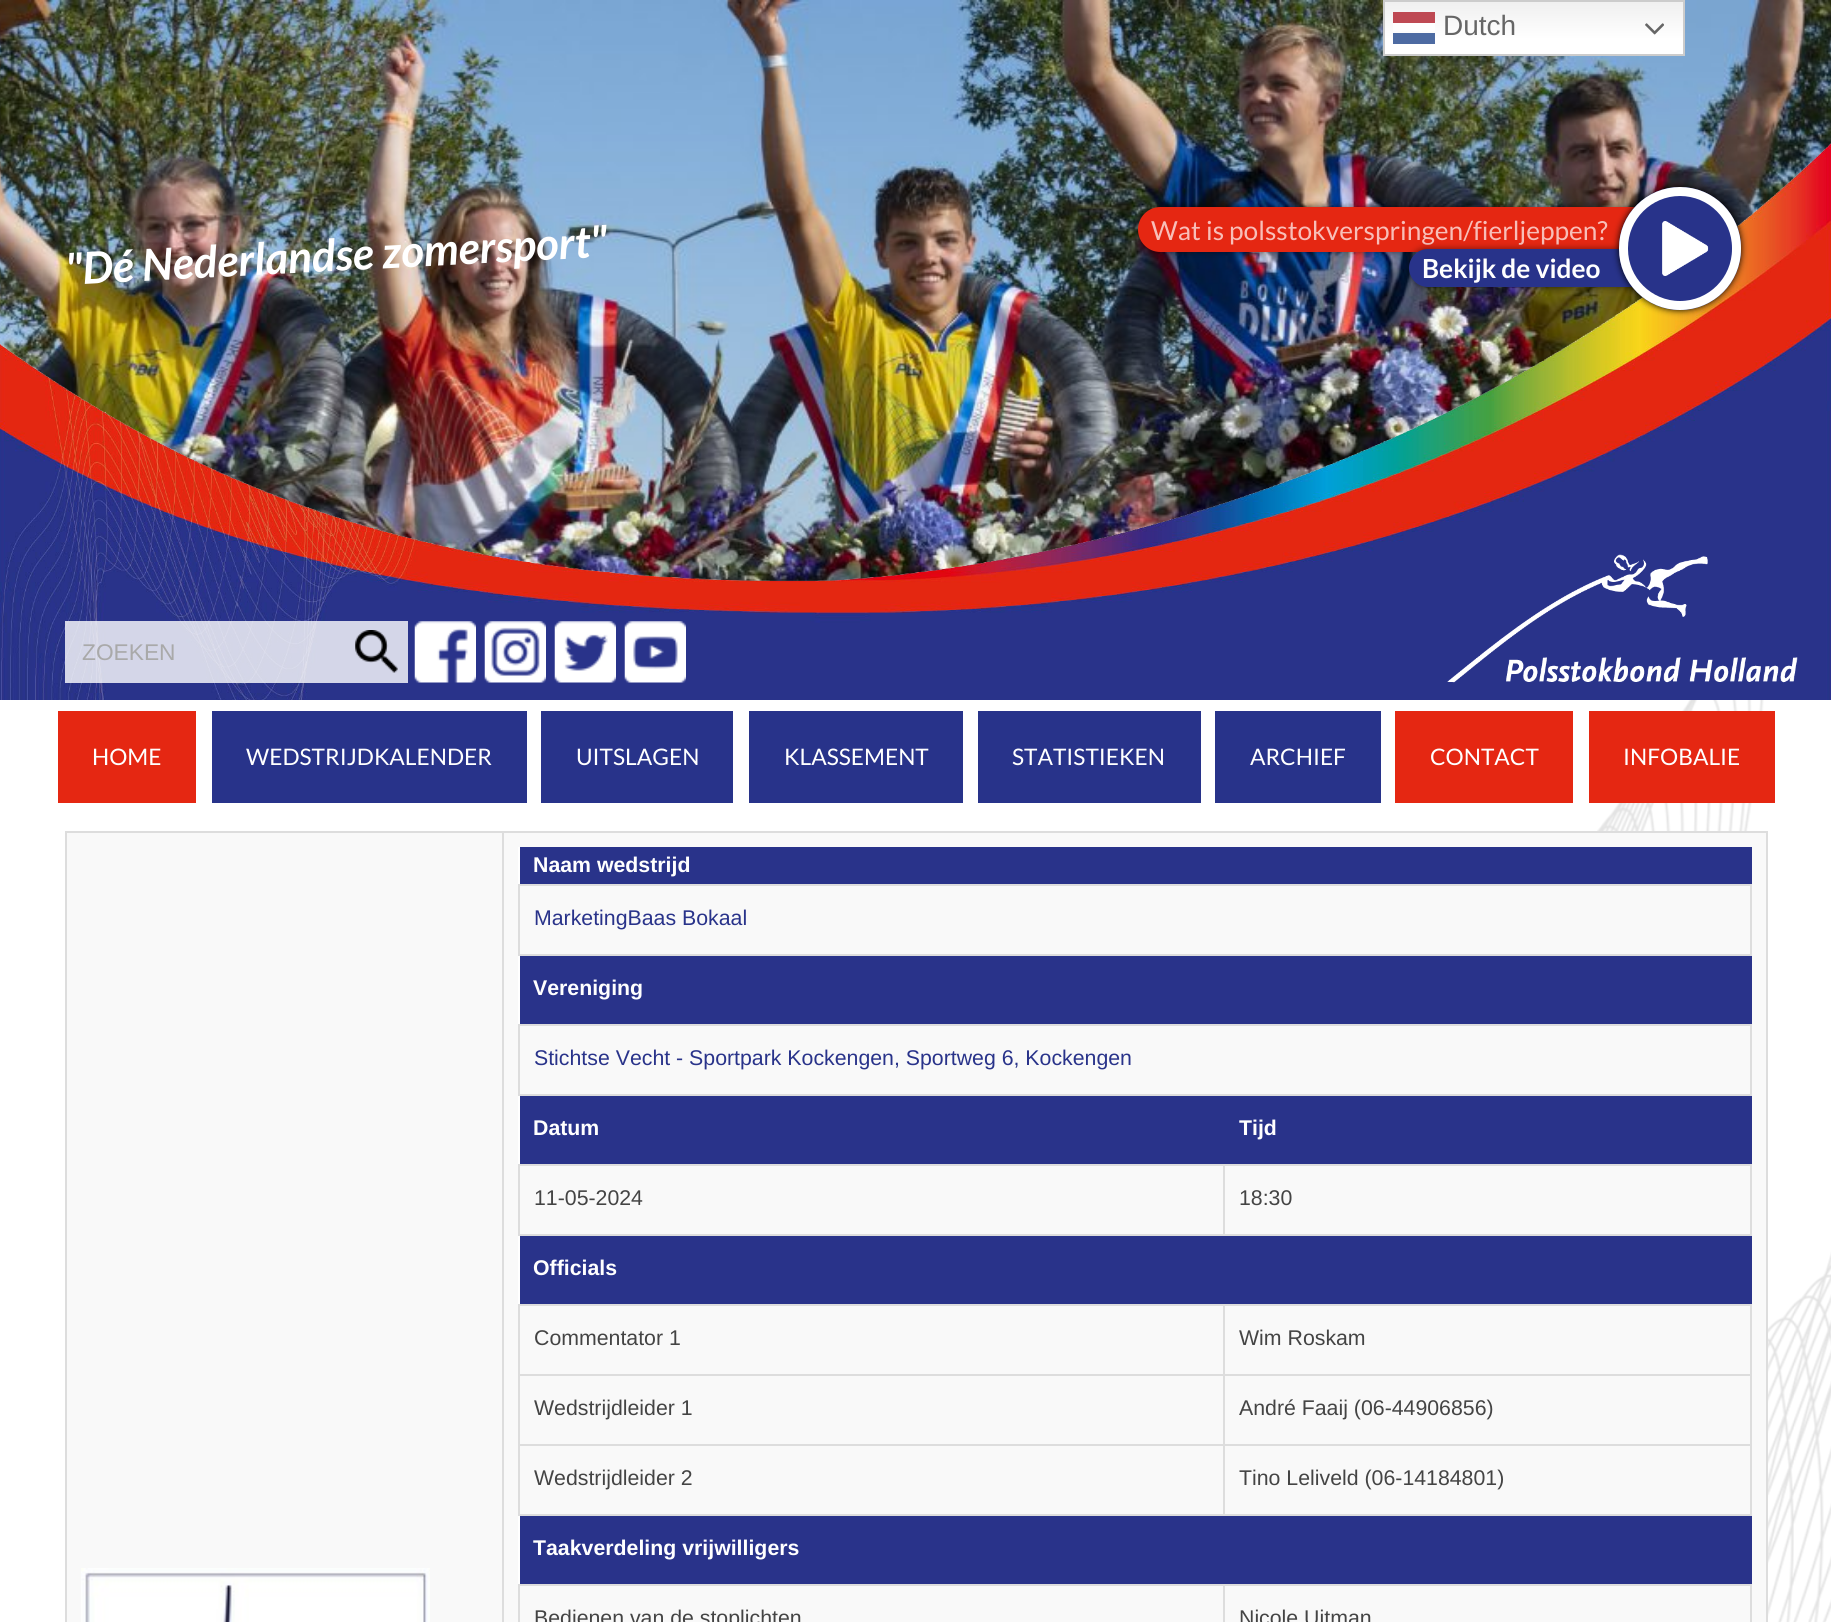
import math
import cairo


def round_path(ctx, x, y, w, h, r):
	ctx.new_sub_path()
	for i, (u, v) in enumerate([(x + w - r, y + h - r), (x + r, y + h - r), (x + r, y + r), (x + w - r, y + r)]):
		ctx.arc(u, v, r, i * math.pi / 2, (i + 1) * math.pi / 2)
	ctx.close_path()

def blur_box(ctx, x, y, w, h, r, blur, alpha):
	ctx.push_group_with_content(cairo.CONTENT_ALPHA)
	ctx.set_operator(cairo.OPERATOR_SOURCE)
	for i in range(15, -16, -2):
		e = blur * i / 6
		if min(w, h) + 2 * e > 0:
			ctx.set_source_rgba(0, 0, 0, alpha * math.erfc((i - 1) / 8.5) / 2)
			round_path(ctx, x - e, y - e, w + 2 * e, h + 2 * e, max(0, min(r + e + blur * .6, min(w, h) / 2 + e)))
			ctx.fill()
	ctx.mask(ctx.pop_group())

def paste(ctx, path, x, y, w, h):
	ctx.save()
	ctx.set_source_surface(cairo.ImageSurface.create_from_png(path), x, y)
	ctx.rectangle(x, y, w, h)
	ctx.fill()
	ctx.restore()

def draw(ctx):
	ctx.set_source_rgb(1, 1, 1)
	ctx.paint()
	paste(ctx, 'media/1.png', 1597, 700, 234, 922)
	paste(ctx, 'media/3.png', 0, 0, 1831, 700)
	gradient = cairo.LinearGradient(1534, 0, 1534, 56)
	gradient.add_color_stop_rgba(0, 0.937, 0.937, 0.937, 1)
	gradient.add_color_stop_rgba(0.7, 1, 1, 1, 1)
	ctx.set_source(gradient)
	ctx.rectangle(1385, 2, 298, 52)
	ctx.fill()
	ctx.rectangle(1384, 1, 300, 54)
	ctx.set_source_rgb(0.8, 0.8, 0.8)
	ctx.stroke()
	ctx.set_source_rgb(0.745, 0.286, 0.325)
	ctx.rectangle(1393, 12, 42, 11)
	ctx.fill()
	ctx.select_font_face('Liberation Sans')
	ctx.set_font_size(28)
	ctx.set_source_rgb(0.4, 0.4, 0.4)
	ctx.move_to(1443, 35)
	ctx.show_text('Dutch')
	ctx.set_source_rgba(1, 1, 1, 0.8)
	ctx.rectangle(1393, 23, 42, 8)
	ctx.fill()
	paste(ctx, 'media/2.png', 1645, 23, 19, 12)
	ctx.set_source_rgb(0.302, 0.42, 0.635)
	ctx.rectangle(1393, 33, 42, 11)
	ctx.fill()
	ctx.select_font_face('Lato', cairo.FONT_SLANT_ITALIC, cairo.FONT_WEIGHT_BOLD)
	ctx.set_font_size(44.1)
	ctx.set_source_rgb(1, 1, 1)
	ctx.save()
	ctx.translate(66, 285)
	ctx.rotate(-3 * math.pi / 180)
	ctx.move_to(0, 0)
	ctx.show_text('"Dé Nederlandse zomersport"')
	ctx.restore()
	ctx.set_source_rgba(1, 1, 1, 0.8)
	ctx.rectangle(65, 621, 282, 62)
	ctx.fill()
	ctx.select_font_face('Liberation Sans')
	ctx.set_font_size(22.75)
	ctx.set_source_rgb(0.663, 0.663, 0.663)
	ctx.move_to(82, 660)
	ctx.show_text('ZOEKEN')
	ctx.set_source_rgb(0.831, 0.839, 0.91)
	ctx.rectangle(347, 621, 61, 62)
	ctx.fill()
	paste(ctx, 'media/4.png', 355, 630, 43, 43)
	paste(ctx, 'media/5.png', 414, 621, 62, 62)
	paste(ctx, 'media/6.png', 484, 621, 62, 62)
	paste(ctx, 'media/7.png', 554, 621, 62, 62)
	paste(ctx, 'media/8.png', 624, 621, 62, 62)
	paste(ctx, 'media/9.png', 1447, 554, 351, 129)
	ctx.set_source_rgb(0, 0, 0)
	blur_box(ctx, 1138, 207, 560, 45, 22.5, 3.5, 0.5)
	ctx.set_source_rgb(0.898, 0.153, 0.071)
	ctx.new_path()
	ctx.move_to(1160.5, 207)
	ctx.line_to(1698, 207)
	ctx.line_to(1698, 252)
	ctx.line_to(1160.5, 252)
	ctx.curve_to(1148, 252, 1138, 242, 1138, 229.5)
	ctx.curve_to(1138, 217, 1148, 207, 1160.5, 207)
	ctx.close_path()
	ctx.fill()
	ctx.select_font_face('Lato')
	ctx.set_font_size(26.25)
	ctx.set_source_rgb(0.969, 0.745, 0.722)
	ctx.move_to(1151, 240)
	ctx.show_text('Wat is polsstokverspringen/fierljeppen?')
	ctx.set_source_rgb(0, 0, 0)
	blur_box(ctx, 1409, 249, 262, 38, 19, 3.5, 0.5)
	ctx.set_source_rgb(0.157, 0.2, 0.541)
	ctx.new_path()
	ctx.move_to(1428, 249)
	ctx.line_to(1671, 249)
	ctx.line_to(1671, 287)
	ctx.line_to(1428, 287)
	ctx.curve_to(1417.5, 287, 1409, 278.5, 1409, 268)
	ctx.curve_to(1409, 257.5, 1417.5, 249, 1428, 249)
	ctx.close_path()
	ctx.fill()
	ctx.set_source_rgb(0, 0, 0)
	blur_box(ctx, 1619, 187, 122, 123, 61, 3.5, 1)
	ctx.set_source_rgb(0.157, 0.2, 0.541)
	round_path(ctx, 1619, 187, 122, 123, 61)
	ctx.fill()
	paste(ctx, 'media/10.png', 1662, 221, 47, 55)
	round_path(ctx, 1623.5, 191.5, 113, 114, 56.5)
	ctx.set_source_rgb(1, 1, 1)
	ctx.set_line_width(9)
	ctx.stroke()
	ctx.select_font_face('Lato', cairo.FONT_SLANT_NORMAL, cairo.FONT_WEIGHT_BOLD)
	ctx.move_to(1422, 278)
	ctx.show_text('Bekijk de video')
	ctx.set_source_rgb(0.898, 0.153, 0.071)
	ctx.rectangle(58, 711, 138, 92)
	ctx.fill()
	ctx.select_font_face('Lato')
	ctx.set_font_size(22.75)
	ctx.set_source_rgb(1, 1, 1)
	ctx.move_to(92, 765)
	ctx.show_text('HOME')
	ctx.set_source_rgb(0.157, 0.2, 0.541)
	ctx.rectangle(212, 711, 315, 92)
	ctx.fill()
	ctx.set_source_rgb(1, 1, 1)
	ctx.move_to(246, 765)
	ctx.show_text('WEDSTRIJDKALENDER')
	ctx.set_source_rgb(0.157, 0.2, 0.541)
	ctx.rectangle(541, 711, 192, 92)
	ctx.fill()
	ctx.set_source_rgb(1, 1, 1)
	ctx.move_to(576, 765)
	ctx.show_text('UITSLAGEN')
	ctx.set_source_rgb(0.157, 0.2, 0.541)
	ctx.rectangle(749, 711, 214, 92)
	ctx.fill()
	ctx.set_source_rgb(1, 1, 1)
	ctx.move_to(784, 765)
	ctx.show_text('KLASSEMENT')
	ctx.set_source_rgb(0.157, 0.2, 0.541)
	ctx.rectangle(978, 711, 223, 92)
	ctx.fill()
	ctx.set_source_rgb(1, 1, 1)
	ctx.move_to(1012, 765)
	ctx.show_text('STATISTIEKEN')
	ctx.set_source_rgb(0.157, 0.2, 0.541)
	ctx.rectangle(1215, 711, 166, 92)
	ctx.fill()
	ctx.set_source_rgb(1, 1, 1)
	ctx.move_to(1250, 765)
	ctx.show_text('ARCHIEF')
	ctx.set_source_rgb(0.898, 0.153, 0.071)
	ctx.rectangle(1395, 711, 178, 92)
	ctx.fill()
	ctx.set_source_rgb(1, 1, 1)
	ctx.move_to(1430, 765)
	ctx.show_text('CONTACT')
	ctx.set_source_rgb(0.898, 0.153, 0.071)
	ctx.rectangle(1589, 711, 186, 92)
	ctx.fill()
	ctx.set_source_rgb(1, 1, 1)
	ctx.move_to(1623, 765)
	ctx.show_text('INFOBALIE')
	ctx.set_source_rgb(0.976, 0.976, 0.976)
	ctx.rectangle(67, 833, 435, 789)
	ctx.fill()
	ctx.set_source_rgb(0.867, 0.867, 0.867)
	ctx.rectangle(502, 831, 1266, 2)
	ctx.rectangle(502, 831, 2, 791)
	ctx.rectangle(65, 831, 439, 2)
	ctx.rectangle(65, 831, 2, 791)
	ctx.fill()
	paste(ctx, 'media/11.png', 81, 1568, 349, 54)
	ctx.set_source_rgb(0.976, 0.976, 0.976)
	ctx.rectangle(504, 833, 1262, 789)
	ctx.fill()
	ctx.set_source_rgb(0.867, 0.867, 0.867)
	ctx.rectangle(1766, 831, 2, 791)
	ctx.fill()
	ctx.set_source_rgb(1, 1, 1)
	ctx.rectangle(518, 847, 2, 737)
	ctx.fill()
	ctx.set_source_rgb(0.161, 0.2, 0.541)
	ctx.rectangle(520, 847, 1232, 37)
	ctx.fill()
	ctx.select_font_face('Liberation Sans', cairo.FONT_SLANT_NORMAL, cairo.FONT_WEIGHT_BOLD)
	ctx.set_font_size(21.3)
	ctx.set_source_rgb(1, 1, 1)
	ctx.move_to(533, 872)
	ctx.show_text('Naam wedstrijd')
	ctx.set_source_rgb(0.867, 0.867, 0.867)
	ctx.rectangle(518, 884, 1234, 2)
	ctx.rectangle(1750, 884, 2, 72)
	ctx.rectangle(518, 954, 1234, 2)
	ctx.rectangle(518, 884, 2, 72)
	ctx.fill()
	ctx.select_font_face('Liberation Sans')
	ctx.set_source_rgb(0.161, 0.2, 0.541)
	ctx.move_to(534, 925)
	ctx.show_text('MarketingBaas Bokaal')
	ctx.rectangle(520, 956, 1232, 68)
	ctx.fill()
	ctx.select_font_face('Liberation Sans', cairo.FONT_SLANT_NORMAL, cairo.FONT_WEIGHT_BOLD)
	ctx.set_source_rgb(1, 1, 1)
	ctx.move_to(533, 995)
	ctx.show_text('Vereniging')
	ctx.set_source_rgb(0.867, 0.867, 0.867)
	ctx.rectangle(518, 1024, 1234, 2)
	ctx.rectangle(1750, 1024, 2, 72)
	ctx.rectangle(518, 1094, 1234, 2)
	ctx.rectangle(518, 1024, 2, 72)
	ctx.fill()
	ctx.select_font_face('Liberation Sans')
	ctx.set_source_rgb(0.161, 0.2, 0.541)
	ctx.move_to(534, 1065)
	ctx.show_text('Stichtse Vecht - Sportpark Kockengen, Sportweg 6, Kockengen')
	ctx.rectangle(520, 1096, 1232, 68)
	ctx.fill()
	ctx.select_font_face('Liberation Sans', cairo.FONT_SLANT_NORMAL, cairo.FONT_WEIGHT_BOLD)
	ctx.set_source_rgb(1, 1, 1)
	ctx.move_to(533, 1135)
	ctx.show_text('Datum')
	ctx.move_to(1239, 1135)
	ctx.show_text('Tijd')
	ctx.set_source_rgb(0.867, 0.867, 0.867)
	ctx.rectangle(1223, 1164, 529, 2)
	ctx.rectangle(1750, 1164, 2, 72)
	ctx.rectangle(1223, 1234, 529, 2)
	ctx.rectangle(1223, 1164, 2, 72)
	ctx.rectangle(518, 1164, 707, 2)
	ctx.rectangle(518, 1234, 707, 2)
	ctx.rectangle(518, 1164, 2, 72)
	ctx.fill()
	ctx.select_font_face('Liberation Sans')
	ctx.set_source_rgb(0.267, 0.267, 0.267)
	ctx.move_to(534, 1205)
	ctx.show_text('11-05-2024')
	ctx.move_to(1239, 1205)
	ctx.show_text('18:30')
	ctx.set_source_rgb(0.161, 0.2, 0.541)
	ctx.rectangle(520, 1236, 1232, 68)
	ctx.fill()
	ctx.select_font_face('Liberation Sans', cairo.FONT_SLANT_NORMAL, cairo.FONT_WEIGHT_BOLD)
	ctx.set_source_rgb(1, 1, 1)
	ctx.move_to(533, 1275)
	ctx.show_text('Officials')
	ctx.set_source_rgb(0.867, 0.867, 0.867)
	ctx.rectangle(1223, 1304, 529, 2)
	ctx.rectangle(1223, 1374, 529, 2)
	ctx.rectangle(1223, 1444, 529, 2)
	ctx.rectangle(1750, 1444, 2, 72)
	ctx.rectangle(1223, 1514, 529, 2)
	ctx.rectangle(1223, 1444, 2, 72)
	ctx.rectangle(518, 1444, 707, 2)
	ctx.rectangle(1223, 1374, 2, 72)
	ctx.rectangle(518, 1374, 707, 2)
	ctx.rectangle(1223, 1304, 2, 72)
	ctx.rectangle(518, 1304, 707, 2)
	ctx.rectangle(518, 1514, 707, 2)
	ctx.rectangle(518, 1444, 2, 72)
	ctx.rectangle(518, 1374, 2, 72)
	ctx.rectangle(518, 1304, 2, 72)
	ctx.fill()
	ctx.select_font_face('Liberation Sans')
	ctx.set_source_rgb(0.267, 0.267, 0.267)
	ctx.move_to(534, 1345)
	ctx.show_text('Commentator 1')
	ctx.set_source_rgb(0.867, 0.867, 0.867)
	ctx.rectangle(1750, 1374, 2, 72)
	ctx.fill()
	ctx.rectangle(1750, 1304, 2, 72)
	ctx.fill()
	ctx.set_source_rgb(0.267, 0.267, 0.267)
	for x, y, s in [
		(1239, 1345, 'Wim Roskam'),
		(534, 1415, 'Wedstrijdleider 1'),
		(1239, 1415, 'André Faaij (06-44906856)'),
		(534, 1485, 'Wedstrijdleider 2'),
		(1239, 1485, 'Tino Leliveld (06-14184801)'),
	]:
		ctx.move_to(x, y)
		ctx.show_text(s)
	ctx.set_source_rgb(0.161, 0.2, 0.541)
	ctx.rectangle(520, 1516, 1232, 68)
	ctx.fill()
	ctx.select_font_face('Liberation Sans', cairo.FONT_SLANT_NORMAL, cairo.FONT_WEIGHT_BOLD)
	ctx.set_source_rgb(1, 1, 1)
	ctx.move_to(533, 1555)
	ctx.show_text('Taakverdeling vrijwilligers')
	ctx.set_source_rgb(0.867, 0.867, 0.867)
	ctx.rectangle(1223, 1584, 529, 2)
	ctx.rectangle(1223, 1584, 2, 38)
	ctx.rectangle(518, 1584, 707, 2)
	ctx.rectangle(518, 1584, 2, 38)
	ctx.fill()
	ctx.select_font_face('Liberation Sans')
	ctx.set_source_rgb(0.267, 0.267, 0.267)
	ctx.move_to(534, 1625)
	ctx.show_text('Bedienen van de stoplichten')
	ctx.set_source_rgb(0.867, 0.867, 0.867)
	ctx.rectangle(1750, 1584, 2, 38)
	ctx.fill()
	ctx.set_source_rgb(0.267, 0.267, 0.267)
	ctx.move_to(1239, 1625)
	ctx.show_text('Nicole Uitman')


surface = cairo.ImageSurface(cairo.FORMAT_RGB24, 1831, 1622)
ctx = cairo.Context(surface)
options = cairo.FontOptions()
options.set_hint_metrics(cairo.HINT_METRICS_OFF)
options.set_hint_style(cairo.HINT_STYLE_NONE)
ctx.set_font_options(options)
ctx.set_miter_limit(4)
draw(ctx)
surface.write_to_png('image.png')
